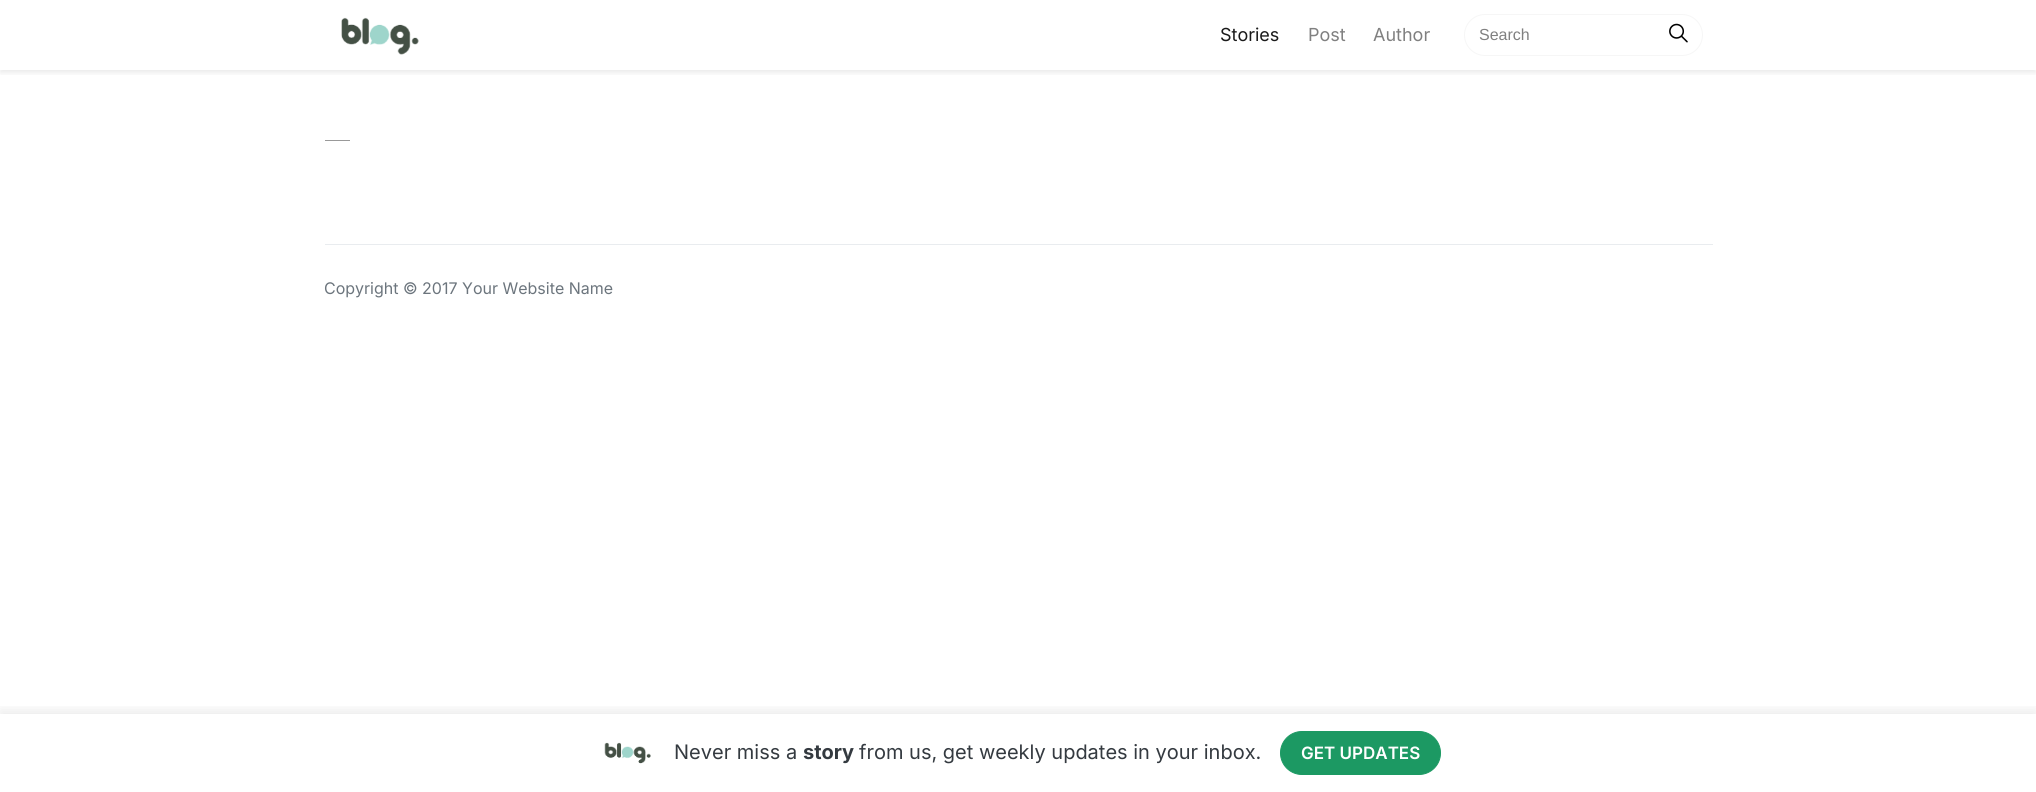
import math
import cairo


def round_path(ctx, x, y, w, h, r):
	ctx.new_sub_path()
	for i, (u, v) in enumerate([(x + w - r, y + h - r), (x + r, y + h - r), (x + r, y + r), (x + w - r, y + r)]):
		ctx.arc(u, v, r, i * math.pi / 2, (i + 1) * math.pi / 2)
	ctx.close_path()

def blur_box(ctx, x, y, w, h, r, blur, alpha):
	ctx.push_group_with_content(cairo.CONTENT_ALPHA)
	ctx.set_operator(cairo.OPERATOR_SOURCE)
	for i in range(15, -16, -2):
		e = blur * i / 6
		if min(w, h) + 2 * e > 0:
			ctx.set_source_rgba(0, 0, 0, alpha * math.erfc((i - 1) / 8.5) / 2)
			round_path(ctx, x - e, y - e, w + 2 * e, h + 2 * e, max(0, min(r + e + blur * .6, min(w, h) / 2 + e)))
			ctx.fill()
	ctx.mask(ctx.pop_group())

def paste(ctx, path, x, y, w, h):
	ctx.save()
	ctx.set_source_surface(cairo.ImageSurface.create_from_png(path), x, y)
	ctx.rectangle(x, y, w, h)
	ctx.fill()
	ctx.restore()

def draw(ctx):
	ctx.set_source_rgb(1, 1, 1)
	ctx.paint()
	ctx.save()
	ctx.rectangle(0, 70, 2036, 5)
	ctx.clip()
	ctx.set_source_rgb(0, 0, 0)
	blur_box(ctx, 0, 3, 2036, 70, 0, 2.5, 0.08)
	ctx.restore()
	paste(ctx, 'media/1.png', 341, 17, 78, 38)
	ctx.select_font_face('Inter')
	ctx.set_font_size(18)
	ctx.set_source_rgb(0.102, 0.102, 0.102)
	ctx.move_to(1220, 41)
	ctx.show_text('Stories')
	ctx.set_source_rgb(0.502, 0.502, 0.502)
	ctx.move_to(1308, 41)
	ctx.show_text('Post')
	ctx.move_to(1373, 41)
	ctx.show_text('Author')
	round_path(ctx, 1464.5, 14.5, 238, 41, 20.5)
	ctx.set_source_rgb(0.961, 0.961, 0.961)
	ctx.set_line_width(1)
	ctx.stroke()
	ctx.select_font_face('Liberation Sans')
	ctx.set_font_size(16)
	ctx.set_source_rgb(0.502, 0.502, 0.502)
	ctx.move_to(1479, 40)
	ctx.show_text('Search')
	paste(ctx, 'media/2.png', 1669, 23, 19, 20)
	ctx.set_source_rgb(0.6, 0.6, 0.6)
	ctx.rectangle(325, 140, 25, 1)
	ctx.fill()
	ctx.set_source_rgb(0.914, 0.925, 0.937)
	ctx.rectangle(325, 244, 1388, 1)
	ctx.fill()
	ctx.select_font_face('Inter')
	ctx.set_source_rgb(0.424, 0.459, 0.49)
	ctx.move_to(324, 294)
	ctx.show_text('Copyright © 2017 Your Website Name')
	ctx.save()
	ctx.rectangle(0, 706, 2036, 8)
	ctx.clip()
	ctx.set_source_rgb(0, 0, 0)
	blur_box(ctx, 0, 710, 2036, 79, 0, 6, 0.08)
	ctx.restore()
	paste(ctx, 'media/3.png', 604, 742, 47, 22)
	ctx.set_font_size(20)
	ctx.set_source_rgb(0.204, 0.227, 0.251)
	ctx.move_to(674, 759)
	ctx.show_text('Never miss a')
	ctx.select_font_face('Inter', cairo.FONT_SLANT_NORMAL, cairo.FONT_WEIGHT_BOLD)
	ctx.move_to(803, 759)
	ctx.show_text('story')
	ctx.select_font_face('Inter')
	ctx.move_to(859, 759)
	ctx.show_text('from us, get weekly updates in your inbox.')
	ctx.set_source_rgb(0.11, 0.6, 0.388)
	round_path(ctx, 1280.5, 731.5, 160, 43, 21.5)
	ctx.fill_preserve()
	ctx.stroke()
	ctx.select_font_face('Inter SemiBold')
	ctx.set_font_size(17)
	ctx.set_source_rgb(1, 1, 1)
	ctx.move_to(1301, 759)
	ctx.show_text('GET UPDATES')


surface = cairo.ImageSurface(cairo.FORMAT_RGB24, 2036, 792)
ctx = cairo.Context(surface)
options = cairo.FontOptions()
options.set_hint_metrics(cairo.HINT_METRICS_OFF)
options.set_hint_style(cairo.HINT_STYLE_NONE)
ctx.set_font_options(options)
ctx.set_miter_limit(4)
draw(ctx)
surface.write_to_png('image.png')
